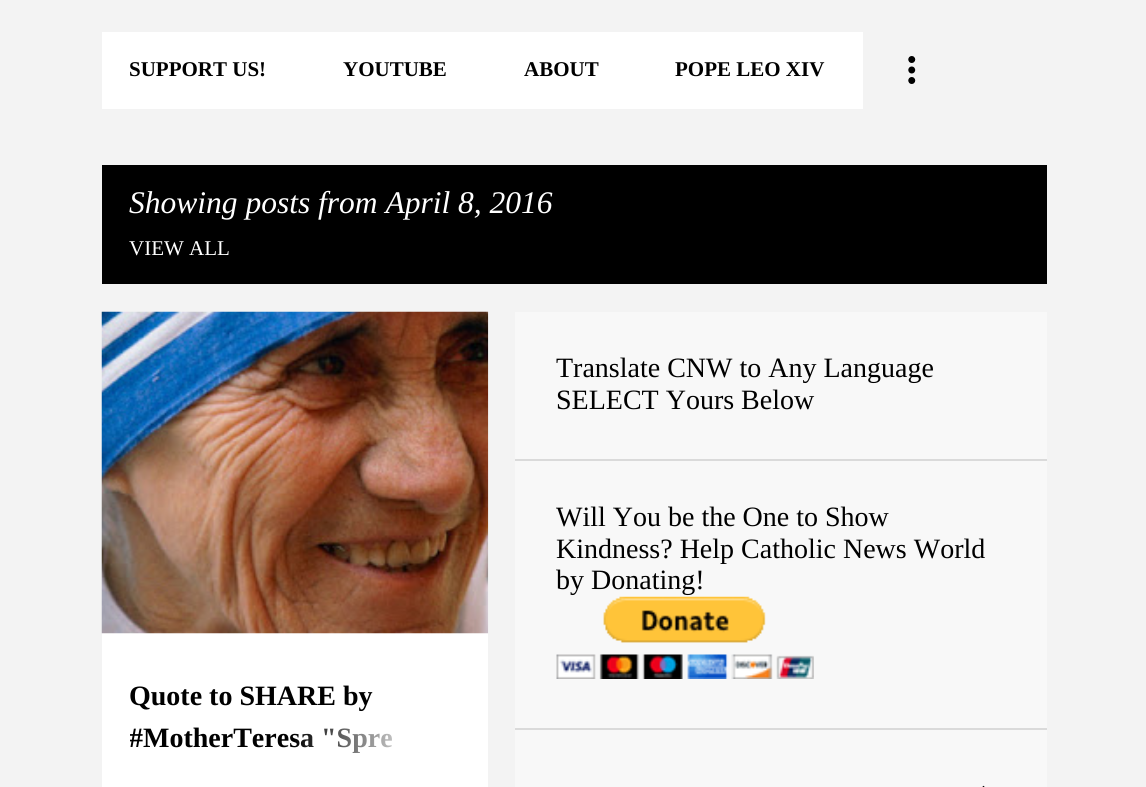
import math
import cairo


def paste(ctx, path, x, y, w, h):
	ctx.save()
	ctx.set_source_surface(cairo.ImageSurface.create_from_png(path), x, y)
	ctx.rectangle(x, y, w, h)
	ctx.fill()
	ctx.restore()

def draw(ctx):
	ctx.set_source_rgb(0.953, 0.953, 0.953)
	ctx.paint()
	ctx.set_source_rgb(1, 1, 1)
	ctx.rectangle(102, 32, 761, 77)
	ctx.fill()
	ctx.select_font_face('Liberation Serif', cairo.FONT_SLANT_NORMAL, cairo.FONT_WEIGHT_BOLD)
	ctx.set_font_size(21)
	ctx.set_source_rgb(0, 0, 0)
	for x, y, s in [
		(129, 76, 'SUPPORT US!'),
		(343, 76, 'YOUTUBE'),
		(524, 76, 'ABOUT'),
		(675, 76, 'POPE LEO XIV'),
	]:
		ctx.move_to(x, y)
		ctx.show_text(s)
	paste(ctx, 'media/1.png', 908, 56, 8, 28)
	ctx.rectangle(102, 165, 945, 119)
	ctx.fill()
	ctx.select_font_face('Liberation Serif', cairo.FONT_SLANT_ITALIC)
	ctx.set_font_size(31.5)
	ctx.set_source_rgb(1, 1, 1)
	ctx.move_to(129, 213)
	ctx.show_text('Showing posts from April 8, 2016')
	ctx.select_font_face('Liberation Serif')
	ctx.set_font_size(21)
	ctx.move_to(129, 255)
	ctx.show_text('VIEW ALL')
	ctx.set_source_rgb(0.969, 0.969, 0.969)
	ctx.rectangle(515, 312, 532, 475)
	ctx.fill()
	ctx.set_font_size(28)
	ctx.set_source_rgb(0, 0, 0)
	ctx.move_to(556, 377)
	ctx.show_text('Translate CNW to Any Language')
	ctx.move_to(556, 409)
	ctx.show_text('SELECT Yours Below')
	ctx.set_source_rgb(0.855, 0.855, 0.855)
	ctx.rectangle(515, 459, 532, 2)
	ctx.fill()
	ctx.set_source_rgb(0, 0, 0)
	for x, y, s in [
		(556, 526, 'Will You be the One to Show'),
		(556, 558, 'Kindness? Help Catholic News World'),
		(556, 589, 'by Donating!'),
	]:
		ctx.move_to(x, y)
		ctx.show_text(s)
	paste(ctx, 'media/2.png', 556, 596, 258, 83)
	ctx.set_source_rgb(0.855, 0.855, 0.855)
	ctx.rectangle(515, 728, 532, 2)
	ctx.fill()
	paste(ctx, 'media/3.png', 982, 785, 3, 2)
	ctx.set_source_rgb(1, 1, 1)
	ctx.rectangle(102, 633, 386, 154)
	ctx.fill()
	paste(ctx, 'media/4.png', 101, 311, 388, 323)
	ctx.select_font_face('Liberation Serif', cairo.FONT_SLANT_NORMAL, cairo.FONT_WEIGHT_BOLD)
	ctx.set_source_rgb(0, 0, 0)
	ctx.move_to(129, 705)
	ctx.show_text('Quote to SHARE by')
	ctx.save()
	ctx.rectangle(130, 676, 330, 84)
	ctx.clip()
	ctx.move_to(129, 747)
	ctx.show_text('#MotherTeresa "Spre')
	ctx.restore()
	gradient = cairo.LinearGradient(460, 739, 292, 739)
	gradient.add_color_stop_rgba(0, 1, 1, 1, 1)
	gradient.add_color_stop_rgba(0.2, 1, 1, 1, 1)
	gradient.add_color_stop_rgba(1, 1, 1, 1, 0)
	ctx.set_source(gradient)
	ctx.rectangle(295, 728, 97, 25)
	ctx.fill()


surface = cairo.ImageSurface(cairo.FORMAT_RGB24, 1146, 787)
ctx = cairo.Context(surface)
options = cairo.FontOptions()
options.set_hint_metrics(cairo.HINT_METRICS_OFF)
options.set_hint_style(cairo.HINT_STYLE_NONE)
ctx.set_font_options(options)
ctx.set_miter_limit(4)
draw(ctx)
surface.write_to_png('image.png')
